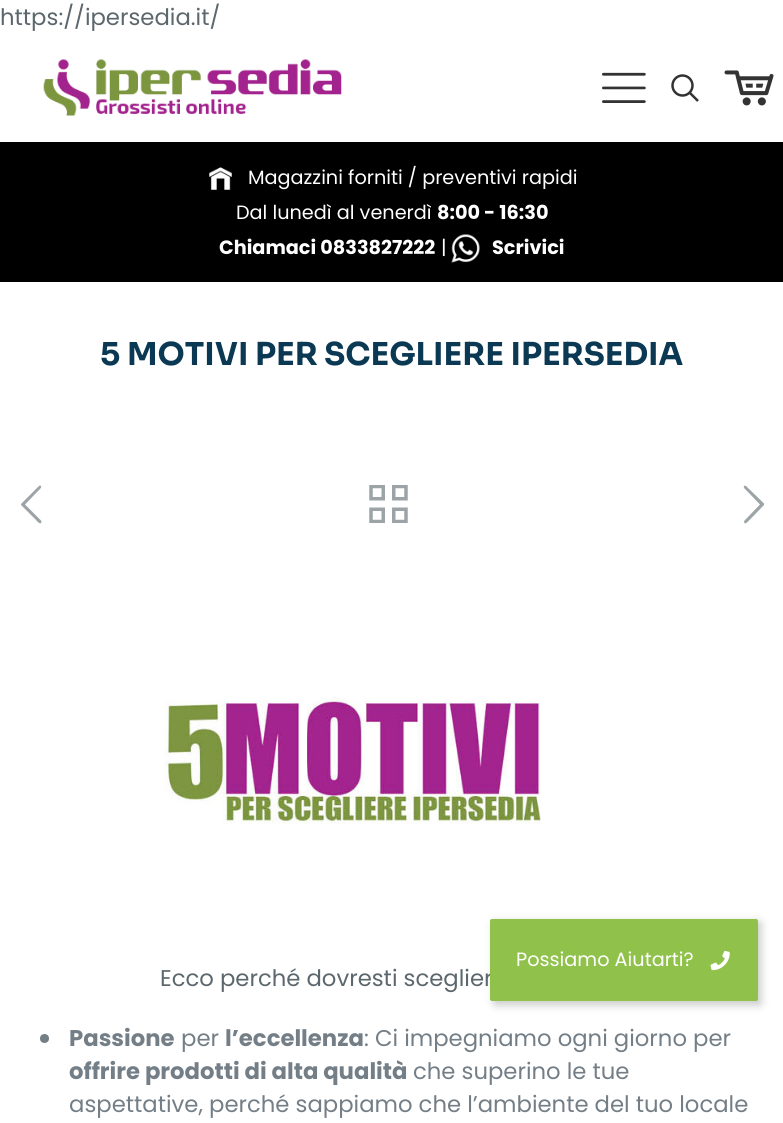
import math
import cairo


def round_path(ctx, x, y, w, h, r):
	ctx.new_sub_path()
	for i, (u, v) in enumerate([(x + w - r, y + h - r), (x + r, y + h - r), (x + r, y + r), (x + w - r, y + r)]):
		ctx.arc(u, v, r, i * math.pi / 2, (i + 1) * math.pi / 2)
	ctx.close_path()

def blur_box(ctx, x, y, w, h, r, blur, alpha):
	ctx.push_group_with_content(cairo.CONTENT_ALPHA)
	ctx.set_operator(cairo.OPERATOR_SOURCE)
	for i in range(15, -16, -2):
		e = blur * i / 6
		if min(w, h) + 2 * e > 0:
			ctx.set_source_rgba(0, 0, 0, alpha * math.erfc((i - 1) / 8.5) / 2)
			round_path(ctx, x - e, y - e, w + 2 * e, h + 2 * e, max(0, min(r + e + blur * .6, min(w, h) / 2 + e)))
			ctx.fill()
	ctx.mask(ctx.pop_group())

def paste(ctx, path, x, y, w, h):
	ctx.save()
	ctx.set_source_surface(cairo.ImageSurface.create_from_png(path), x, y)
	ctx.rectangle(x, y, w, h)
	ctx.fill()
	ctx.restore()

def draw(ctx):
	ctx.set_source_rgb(1, 1, 1)
	ctx.paint()
	ctx.select_font_face('Poppins')
	ctx.set_font_size(22.75)
	ctx.set_source_rgb(0.361, 0.404, 0.427)
	ctx.move_to(0, 25)
	ctx.show_text('https://ipersedia.it/')
	paste(ctx, 'media/1.png', 43, 59, 299, 57)
	paste(ctx, 'media/2.png', 602, 72, 44, 31)
	ctx.arc(682.5, 85.5, 10, 0, 2 * math.pi)
	ctx.set_source_rgb(0.2, 0.2, 0.2)
	ctx.set_line_width(2.5)
	ctx.stroke()
	ctx.new_path()
	ctx.move_to(689.5, 92.5)
	ctx.line_to(698, 101)
	ctx.stroke()
	paste(ctx, 'media/3.png', 724, 70, 50, 36)
	ctx.set_source_rgb(0, 0, 0)
	ctx.rectangle(0, 142, 783, 140)
	ctx.fill()
	paste(ctx, 'media/4.png', 209, 167, 23, 23)
	ctx.set_font_size(19.25)
	ctx.set_source_rgb(1, 1, 1)
	ctx.move_to(248, 184)
	ctx.show_text('Magazzini forniti / preventivi rapidi')
	ctx.move_to(236, 219)
	ctx.show_text('Dal lunedì al venerdì')
	ctx.select_font_face('Poppins', cairo.FONT_SLANT_NORMAL, cairo.FONT_WEIGHT_BOLD)
	ctx.move_to(437, 219)
	ctx.show_text('8:00 - 16:30')
	ctx.move_to(219, 254)
	ctx.show_text('Chiamaci 0833827222')
	ctx.select_font_face('Poppins')
	ctx.move_to(441, 254)
	ctx.show_text('|')
	paste(ctx, 'media/5.png', 451, 234, 29, 29)
	ctx.select_font_face('Poppins', cairo.FONT_SLANT_NORMAL, cairo.FONT_WEIGHT_BOLD)
	ctx.move_to(492, 254)
	ctx.show_text('Scrivici')
	ctx.select_font_face('Sora', cairo.FONT_SLANT_NORMAL, cairo.FONT_WEIGHT_BOLD)
	ctx.set_font_size(31.5)
	ctx.set_source_rgb(0.043, 0.224, 0.329)
	ctx.move_to(100, 365)
	ctx.show_text('5 MOTIVI PER SCEGLIERE IPERSEDIA')
	ctx.set_source_rgb(0.616, 0.643, 0.655)
	ctx.new_path()
	ctx.move_to(41, 520.5)
	ctx.line_to(41.5, 522)
	ctx.curve_to(40.5, 526, 36, 520, 36, 520)
	ctx.line_to(21, 505)
	ctx.line_to(21, 504)
	ctx.line_to(21.5, 503.5)
	ctx.line_to(39, 486)
	ctx.line_to(40, 485.5)
	ctx.curve_to(43.5, 486.5, 38.5, 490.5, 38, 491)
	ctx.line_to(25, 504.5)
	ctx.close_path()
	ctx.fill()
	paste(ctx, 'media/6.png', 369, 485, 39, 38)
	ctx.new_path()
	ctx.move_to(744.5, 520.5)
	ctx.line_to(760, 504.5)
	ctx.line_to(747, 491)
	ctx.curve_to(746.5, 490.5, 741.5, 486.5, 745, 485.5)
	ctx.line_to(746, 486)
	ctx.line_to(764, 503.5)
	ctx.line_to(764, 504)
	ctx.line_to(764, 505)
	ctx.line_to(749.5, 520)
	ctx.curve_to(749, 520, 745, 526, 744, 522)
	ctx.close_path()
	ctx.fill()
	paste(ctx, 'media/7.png', 164, 697, 377, 127)
	ctx.select_font_face('Poppins')
	ctx.set_font_size(22.75)
	ctx.set_source_rgb(0.361, 0.404, 0.427)
	ctx.move_to(160, 986)
	ctx.show_text('Ecco perché dovresti sceglier')
	ctx.set_source_rgb(0.451, 0.494, 0.525)
	ctx.new_path()
	ctx.arc(44.5, 1038.5, 4.5, 0, 2 * math.pi)
	ctx.fill()
	ctx.select_font_face('Poppins', cairo.FONT_SLANT_NORMAL, cairo.FONT_WEIGHT_BOLD)
	ctx.move_to(69, 1046)
	ctx.show_text('Passione')
	ctx.select_font_face('Poppins')
	ctx.move_to(181, 1046)
	ctx.show_text('per')
	ctx.select_font_face('Poppins', cairo.FONT_SLANT_NORMAL, cairo.FONT_WEIGHT_BOLD)
	ctx.move_to(225, 1046)
	ctx.show_text('l’eccellenza')
	ctx.select_font_face('Poppins')
	ctx.move_to(364, 1046)
	ctx.show_text(': Ci impegniamo ogni giorno per')
	ctx.select_font_face('Poppins', cairo.FONT_SLANT_NORMAL, cairo.FONT_WEIGHT_BOLD)
	ctx.move_to(69, 1079)
	ctx.show_text('offrire prodotti di alta qualità')
	ctx.select_font_face('Poppins')
	ctx.move_to(413, 1079)
	ctx.show_text('che superino le tue')
	ctx.move_to(69, 1112)
	ctx.show_text('aspettative, perché sappiamo che l’ambiente del tuo locale')
	ctx.set_source_rgb(0.298, 0.298, 0.298)
	blur_box(ctx, 494, 922, 267, 83, 2, 4.5, 0.3)
	ctx.set_source_rgb(0.565, 0.761, 0.294)
	round_path(ctx, 490, 919, 268, 82, 2)
	ctx.fill()
	ctx.set_font_size(19.25)
	ctx.set_source_rgb(1, 1, 1)
	ctx.move_to(516, 966)
	ctx.show_text('Possiamo Aiutarti?')
	paste(ctx, 'media/8.png', 710, 950, 20, 21)


surface = cairo.ImageSurface(cairo.FORMAT_RGB24, 783, 1123)
ctx = cairo.Context(surface)
options = cairo.FontOptions()
options.set_hint_metrics(cairo.HINT_METRICS_OFF)
options.set_hint_style(cairo.HINT_STYLE_NONE)
ctx.set_font_options(options)
ctx.set_miter_limit(4)
draw(ctx)
surface.write_to_png('image.png')
